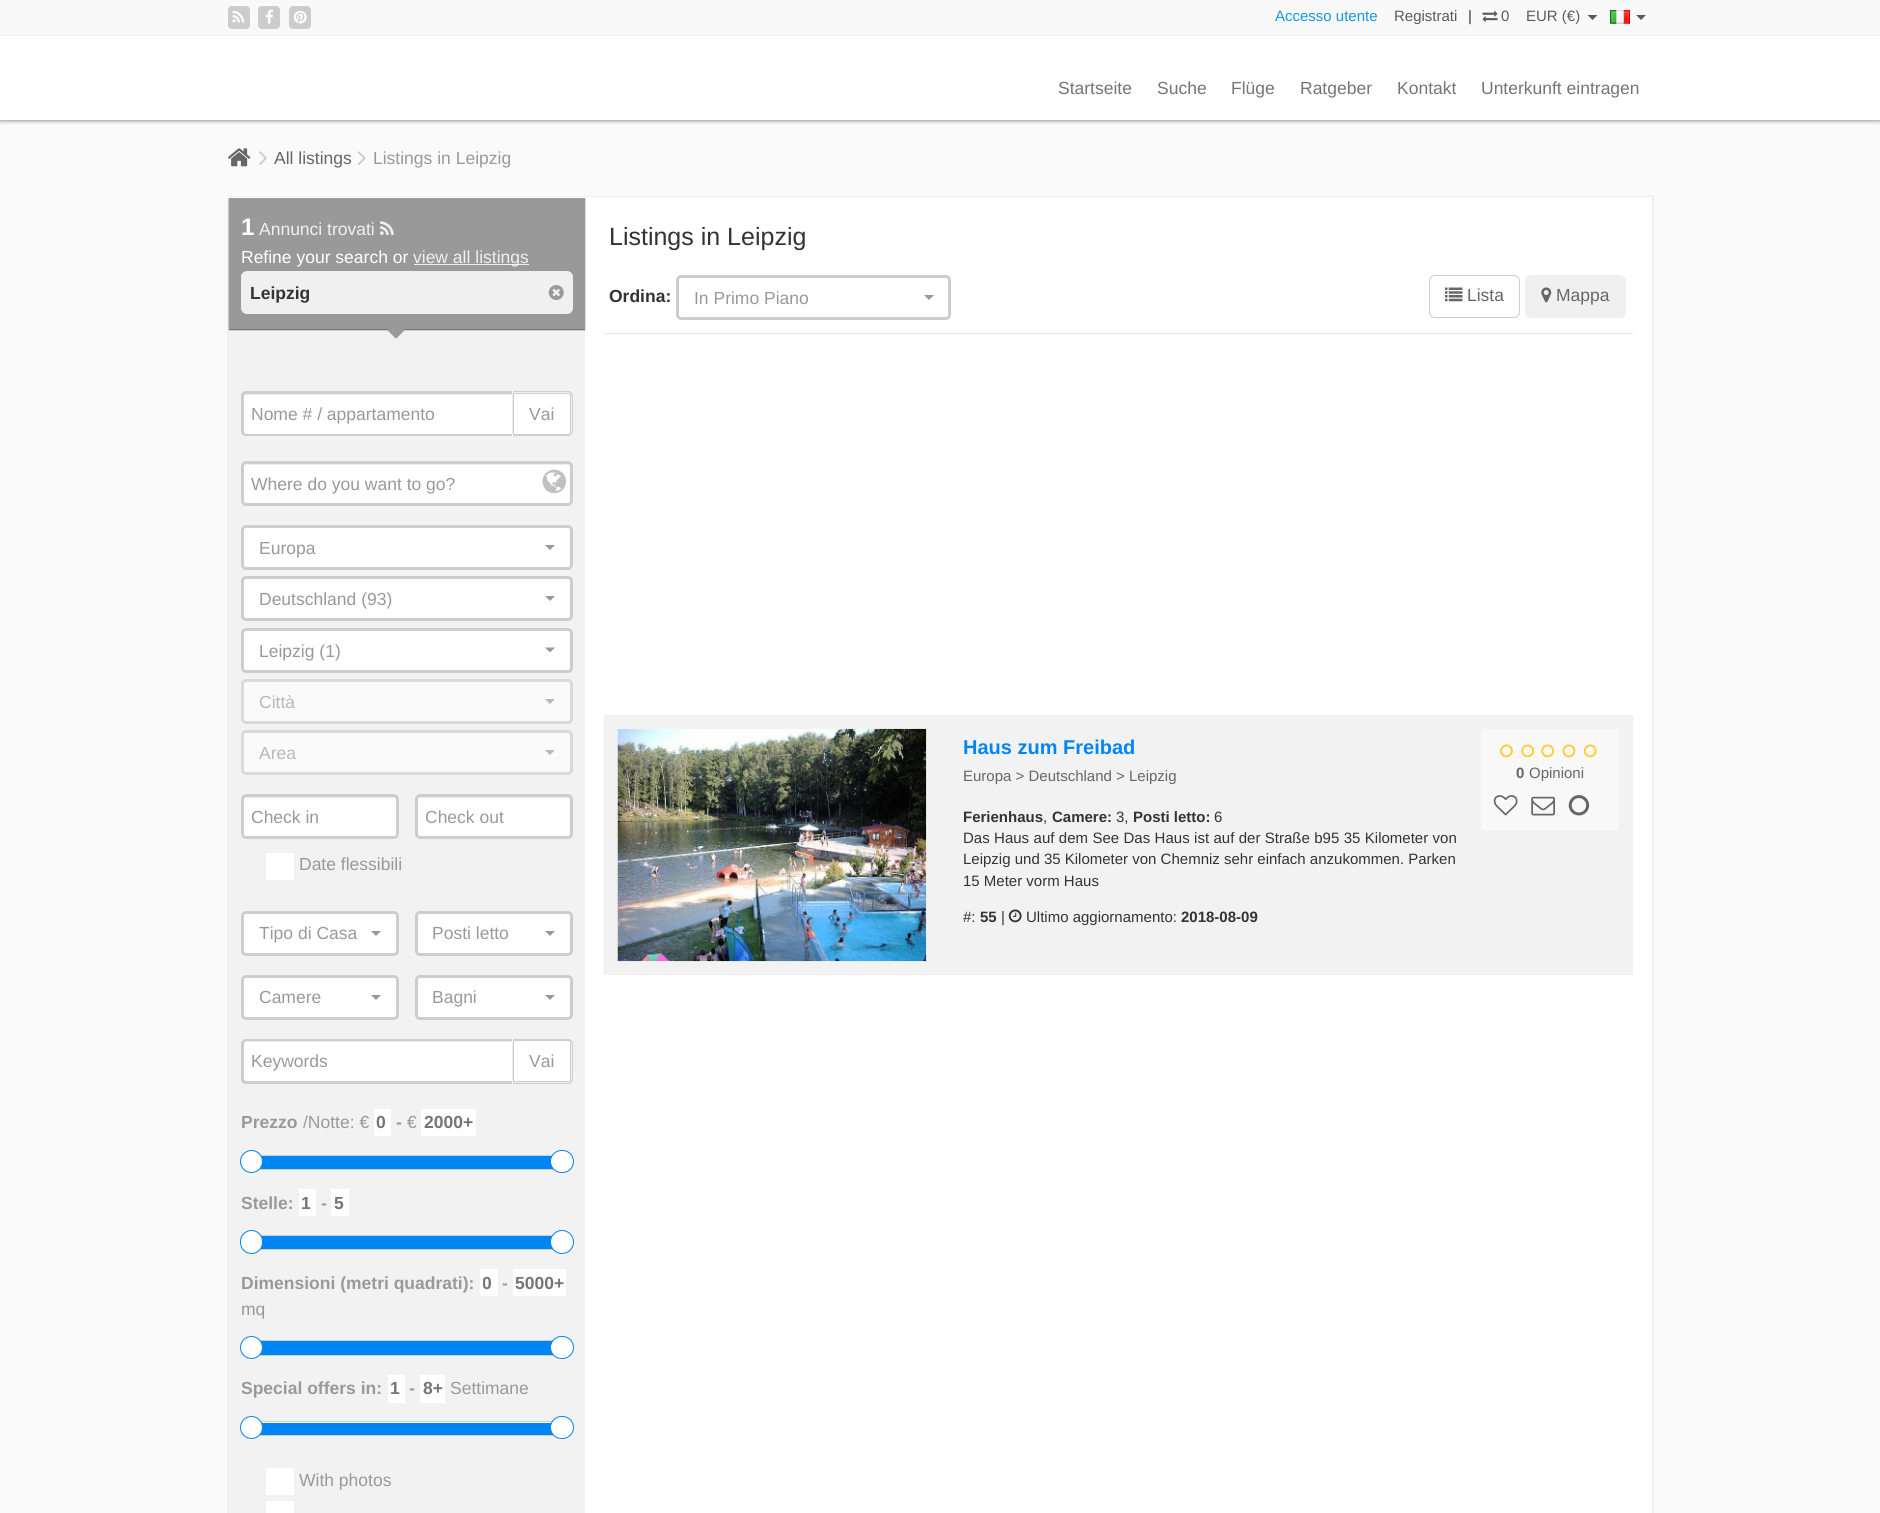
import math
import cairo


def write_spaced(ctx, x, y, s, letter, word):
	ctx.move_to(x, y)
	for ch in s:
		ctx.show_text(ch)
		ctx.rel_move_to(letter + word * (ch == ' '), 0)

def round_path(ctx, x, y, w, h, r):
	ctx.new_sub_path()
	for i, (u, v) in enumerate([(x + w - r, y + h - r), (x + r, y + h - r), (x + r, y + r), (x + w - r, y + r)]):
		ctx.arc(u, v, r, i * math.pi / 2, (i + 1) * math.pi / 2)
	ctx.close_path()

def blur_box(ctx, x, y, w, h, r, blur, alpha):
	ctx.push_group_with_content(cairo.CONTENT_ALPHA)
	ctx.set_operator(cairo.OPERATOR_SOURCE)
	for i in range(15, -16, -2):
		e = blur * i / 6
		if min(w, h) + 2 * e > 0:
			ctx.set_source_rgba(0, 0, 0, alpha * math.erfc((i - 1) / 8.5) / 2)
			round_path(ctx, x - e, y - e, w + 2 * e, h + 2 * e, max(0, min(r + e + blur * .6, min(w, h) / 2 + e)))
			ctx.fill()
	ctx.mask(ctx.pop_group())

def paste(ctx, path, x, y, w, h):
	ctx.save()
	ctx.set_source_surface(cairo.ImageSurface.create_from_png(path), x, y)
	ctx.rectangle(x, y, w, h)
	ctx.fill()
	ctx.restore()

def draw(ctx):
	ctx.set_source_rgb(0.98, 0.98, 0.98)
	ctx.paint()
	ctx.set_source_rgb(0, 0, 0)
	blur_box(ctx, 0, 0, 1880, 120, 0, 2.5, 0.6)
	ctx.set_source_rgb(1, 1, 1)
	ctx.rectangle(0, 36, 1880, 84)
	ctx.fill()
	ctx.set_source_rgb(0.973, 0.973, 0.973)
	ctx.rectangle(0, 0, 1880, 35)
	ctx.fill()
	ctx.set_source_rgb(0.953, 0.953, 0.953)
	ctx.rectangle(0, 35, 1880, 1)
	ctx.fill()
	ctx.set_source_rgb(0.8, 0.8, 0.8)
	round_path(ctx, 228, 6, 22, 23, 4)
	ctx.fill()
	paste(ctx, 'media/1.png', 232, 10, 13, 13)
	round_path(ctx, 258, 6, 22, 23, 4)
	ctx.fill()
	paste(ctx, 'media/2.png', 265, 9, 8, 15)
	round_path(ctx, 289, 6, 22, 23, 4)
	ctx.fill()
	paste(ctx, 'media/3.png', 293, 10, 14, 14)
	ctx.select_font_face('Liberation Sans')
	ctx.set_font_size(15)
	ctx.set_source_rgb(0.075, 0.588, 0.886)
	ctx.move_to(1275, 21)
	ctx.show_text('Accesso utente')
	ctx.set_source_rgb(0.353, 0.353, 0.353)
	ctx.move_to(1394, 21)
	ctx.show_text('Registrati')
	ctx.set_source_rgb(0.2, 0.2, 0.2)
	ctx.move_to(1468, 21)
	ctx.show_text('|')
	paste(ctx, 'media/4.png', 1482, 10, 16, 12)
	ctx.set_source_rgb(0.353, 0.353, 0.353)
	ctx.move_to(1501, 21)
	ctx.show_text('0')
	ctx.move_to(1526, 21)
	ctx.show_text('EUR (€)')
	ctx.new_path()
	ctx.move_to(1587.5, 15)
	ctx.line_to(1597.5, 15)
	ctx.line_to(1592.5, 20)
	ctx.close_path()
	ctx.fill()
	paste(ctx, 'media/5.png', 1610, 10, 20, 14)
	ctx.new_path()
	ctx.move_to(1636, 15)
	ctx.line_to(1646, 15)
	ctx.line_to(1641, 20)
	ctx.close_path()
	ctx.fill()
	ctx.set_font_size(17.5)
	ctx.set_source_rgb(0.459, 0.459, 0.459)
	for x, y, s in [
		(1058, 94, 'Startseite'),
		(1157, 94, 'Suche'),
		(1231, 94, 'Flüge'),
		(1300, 94, 'Ratgeber'),
		(1397, 94, 'Kontakt'),
		(1481, 94, 'Unterkunft eintragen'),
	]:
		ctx.move_to(x, y)
		ctx.show_text(s)
	paste(ctx, 'media/6.png', 227, 148, 24, 19)
	paste(ctx, 'media/7.png', 259, 151, 8, 14)
	ctx.set_source_rgb(0.4, 0.4, 0.4)
	ctx.move_to(274, 164)
	ctx.show_text('All listings')
	paste(ctx, 'media/8.png', 357, 151, 9, 14)
	ctx.set_source_rgb(0.6, 0.6, 0.6)
	ctx.move_to(373, 164)
	ctx.show_text('Listings in Leipzig')
	ctx.set_source_rgb(0, 0, 0)
	blur_box(ctx, 228, 198, 1425, 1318, 0, 1, 0.08)
	ctx.set_source_rgb(1, 1, 1)
	ctx.rectangle(228.5, 196.5, 1424, 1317)
	ctx.fill_preserve()
	ctx.set_source_rgb(0.922, 0.922, 0.922)
	ctx.set_line_width(1)
	ctx.stroke()
	ctx.set_source_rgb(0.949, 0.949, 0.949)
	ctx.rectangle(229, 329, 356, 1184)
	ctx.fill()
	ctx.set_source_rgb(0, 0, 0)
	blur_box(ctx, 229, 199, 356, 131, 0, 0.5, 0.6)
	ctx.set_source_rgb(0.6, 0.6, 0.6)
	ctx.rectangle(229, 198, 356, 131)
	ctx.fill()
	ctx.select_font_face('Liberation Sans', cairo.FONT_SLANT_NORMAL, cairo.FONT_WEIGHT_BOLD)
	ctx.set_font_size(24)
	ctx.set_source_rgb(1, 1, 1)
	ctx.move_to(241, 235)
	ctx.show_text('1')
	ctx.select_font_face('Liberation Sans')
	ctx.set_font_size(17.5)
	ctx.set_source_rgb(0.941, 0.941, 0.941)
	ctx.move_to(259, 235)
	ctx.show_text('Annunci trovati')
	paste(ctx, 'media/9.png', 380, 221, 14, 14)
	ctx.set_source_rgb(1, 1, 1)
	ctx.move_to(241, 263)
	ctx.show_text('Refine your search or')
	ctx.set_source_rgb(0.941, 0.941, 0.941)
	ctx.rectangle(414, 264, 115, 1)
	ctx.fill()
	ctx.move_to(413, 263)
	ctx.show_text('view all listings')
	round_path(ctx, 241, 271, 332, 43, 6)
	ctx.fill()
	ctx.select_font_face('Liberation Sans', cairo.FONT_SLANT_NORMAL, cairo.FONT_WEIGHT_BOLD)
	ctx.set_source_rgb(0.2, 0.2, 0.2)
	ctx.move_to(250, 299)
	ctx.show_text('Leipzig')
	paste(ctx, 'media/10.png', 548, 285, 16, 15)
	paste(ctx, 'media/11.png', 387, 329, 18, 10)
	ctx.set_source_rgb(1, 1, 1)
	ctx.new_path()
	ctx.move_to(246, 391)
	ctx.line_to(513, 391)
	ctx.line_to(513, 436)
	ctx.line_to(246, 436)
	ctx.curve_to(243, 436, 241, 434, 241, 431)
	ctx.line_to(241, 396)
	ctx.curve_to(241, 393, 243, 391, 246, 391)
	ctx.close_path()
	ctx.fill()
	ctx.set_source_rgb(0.925, 0.925, 0.925)
	ctx.new_path()
	ctx.move_to(246, 395)
	ctx.line_to(512, 395)
	ctx.line_to(512, 434)
	ctx.line_to(513, 434)
	ctx.line_to(513, 394)
	ctx.line_to(246, 394)
	ctx.curve_to(244, 394, 244, 396, 244, 398)
	ctx.curve_to(244, 396, 245, 395, 246, 395)
	ctx.close_path()
	ctx.fill()
	ctx.set_source_rgb(0.804, 0.804, 0.804)
	ctx.set_fill_rule(cairo.FILL_RULE_EVEN_ODD)
	ctx.new_path()
	ctx.move_to(246, 391)
	ctx.line_to(512, 391)
	ctx.line_to(512, 436)
	ctx.line_to(246, 436)
	ctx.curve_to(243, 436, 241, 434, 241, 431)
	ctx.line_to(241, 396)
	ctx.curve_to(241, 393, 243, 391, 246, 391)
	ctx.close_path()
	ctx.move_to(246, 394)
	ctx.line_to(512, 394)
	ctx.line_to(512, 434)
	ctx.line_to(246, 434)
	ctx.curve_to(245, 434, 244, 433, 244, 431)
	ctx.line_to(244, 396)
	ctx.curve_to(244, 395, 245, 394, 246, 394)
	ctx.close_path()
	ctx.fill()
	ctx.select_font_face('Liberation Sans')
	ctx.set_source_rgb(0.6, 0.6, 0.6)
	ctx.move_to(251, 420)
	ctx.show_text('Nome # / appartamento')
	ctx.set_source_rgb(1, 1, 1)
	ctx.new_path()
	ctx.move_to(514, 394)
	ctx.line_to(567.5, 394)
	ctx.curve_to(569, 394, 570, 395, 570, 396.5)
	ctx.line_to(570, 431.5)
	ctx.curve_to(570, 433, 569, 434, 567.5, 434)
	ctx.line_to(514, 434)
	ctx.close_path()
	ctx.fill()
	ctx.new_path()
	ctx.move_to(513.5, 391.5)
	ctx.line_to(568, 391.5)
	ctx.curve_to(570.5, 391.5, 572.5, 393.5, 572.5, 396)
	ctx.line_to(572.5, 431)
	ctx.curve_to(572.5, 433.5, 570.5, 435.5, 568, 435.5)
	ctx.line_to(513.5, 435.5)
	ctx.close_path()
	ctx.set_source_rgb(0.804, 0.804, 0.804)
	ctx.stroke()
	ctx.rectangle(513, 393, 57, 1)
	ctx.rectangle(570, 394, 1, 40)
	ctx.rectangle(513, 434, 57, 1)
	ctx.fill()
	ctx.set_source_rgb(0.6, 0.6, 0.6)
	ctx.move_to(529, 420)
	ctx.show_text('Vai')
	ctx.set_source_rgb(1, 1, 1)
	round_path(ctx, 241, 461, 332, 45, 5)
	ctx.fill()
	ctx.set_source_rgb(0.925, 0.925, 0.925)
	ctx.set_fill_rule(cairo.FILL_RULE_WINDING)
	ctx.new_path()
	ctx.move_to(246, 465)
	ctx.line_to(568, 465)
	ctx.curve_to(569, 465, 570, 466, 570, 468)
	ctx.curve_to(570, 466, 570, 464, 568, 464)
	ctx.line_to(246, 464)
	ctx.curve_to(244, 464, 244, 466, 244, 468)
	ctx.curve_to(244, 466, 245, 465, 246, 465)
	ctx.close_path()
	ctx.fill()
	round_path(ctx, 242.5, 462.5, 329, 42, 3.5)
	ctx.set_source_rgb(0.804, 0.804, 0.804)
	ctx.set_line_width(3)
	ctx.stroke()
	ctx.set_source_rgb(0.6, 0.6, 0.6)
	ctx.move_to(251, 490)
	ctx.show_text('Where do you want to go?')
	paste(ctx, 'media/12.png', 542, 469, 24, 25)
	ctx.set_source_rgb(1, 1, 1)
	round_path(ctx, 242.5, 526.5, 329, 42, 3.5)
	ctx.fill_preserve()
	ctx.set_source_rgb(0.804, 0.804, 0.804)
	ctx.stroke()
	ctx.set_source_rgb(0.6, 0.6, 0.6)
	ctx.move_to(259, 554)
	ctx.show_text('Europa')
	ctx.new_path()
	ctx.move_to(545, 545)
	ctx.line_to(555, 545)
	ctx.line_to(550, 550)
	ctx.close_path()
	ctx.fill()
	ctx.set_source_rgb(1, 1, 1)
	round_path(ctx, 242.5, 577.5, 329, 42, 3.5)
	ctx.fill_preserve()
	ctx.set_source_rgb(0.804, 0.804, 0.804)
	ctx.stroke()
	ctx.set_source_rgb(0.6, 0.6, 0.6)
	ctx.move_to(259, 605)
	ctx.show_text('Deutschland (93)')
	ctx.new_path()
	ctx.move_to(545, 596)
	ctx.line_to(555, 596)
	ctx.line_to(550, 601)
	ctx.close_path()
	ctx.fill()
	ctx.set_source_rgb(1, 1, 1)
	round_path(ctx, 242.5, 629.5, 329, 42, 3.5)
	ctx.fill_preserve()
	ctx.set_source_rgb(0.804, 0.804, 0.804)
	ctx.stroke()
	ctx.set_source_rgb(0.6, 0.6, 0.6)
	ctx.move_to(259, 657)
	ctx.show_text('Leipzig (1)')
	ctx.new_path()
	ctx.move_to(545, 647.5)
	ctx.line_to(555, 647.5)
	ctx.line_to(550, 652.5)
	ctx.close_path()
	ctx.fill()
	ctx.set_source_rgb(0.98, 0.98, 0.98)
	round_path(ctx, 242.5, 680.5, 329, 42, 3.5)
	ctx.fill_preserve()
	ctx.set_source_rgb(0.851, 0.851, 0.851)
	ctx.stroke()
	ctx.set_source_rgb(0.722, 0.722, 0.722)
	ctx.move_to(259, 708)
	ctx.show_text('Città')
	ctx.new_path()
	ctx.move_to(545, 699)
	ctx.line_to(555, 699)
	ctx.line_to(550, 704)
	ctx.close_path()
	ctx.fill()
	ctx.set_source_rgb(0.98, 0.98, 0.98)
	round_path(ctx, 242.5, 731.5, 329, 42, 3.5)
	ctx.fill_preserve()
	ctx.set_source_rgb(0.851, 0.851, 0.851)
	ctx.stroke()
	ctx.set_source_rgb(0.722, 0.722, 0.722)
	ctx.move_to(259, 759)
	ctx.show_text('Area')
	ctx.new_path()
	ctx.move_to(545, 750)
	ctx.line_to(555, 750)
	ctx.line_to(550, 755)
	ctx.close_path()
	ctx.fill()
	ctx.set_source_rgb(1, 1, 1)
	round_path(ctx, 241, 794, 158, 45, 5)
	ctx.fill()
	ctx.set_source_rgb(0.925, 0.925, 0.925)
	ctx.new_path()
	ctx.move_to(246, 798)
	ctx.line_to(394, 798)
	ctx.curve_to(395, 798, 396, 799, 396, 800)
	ctx.curve_to(396, 798, 396, 796, 394, 796)
	ctx.line_to(246, 796)
	ctx.curve_to(244, 796, 244, 798, 244, 800)
	ctx.curve_to(244, 799, 245, 798, 246, 798)
	ctx.close_path()
	ctx.fill()
	round_path(ctx, 242.5, 795.5, 155, 42, 3.5)
	ctx.set_source_rgb(0.804, 0.804, 0.804)
	ctx.stroke()
	ctx.set_source_rgb(0.6, 0.6, 0.6)
	ctx.move_to(251, 823)
	ctx.show_text('Check in')
	ctx.set_source_rgb(1, 1, 1)
	round_path(ctx, 415, 794, 158, 45, 5)
	ctx.fill()
	ctx.set_source_rgb(0.925, 0.925, 0.925)
	ctx.new_path()
	ctx.move_to(420, 798)
	ctx.line_to(568, 798)
	ctx.curve_to(569, 798, 570, 799, 570, 800)
	ctx.curve_to(570, 798, 570, 796, 568, 796)
	ctx.line_to(420, 796)
	ctx.curve_to(418, 796, 418, 798, 418, 800)
	ctx.curve_to(418, 799, 419, 798, 420, 798)
	ctx.close_path()
	ctx.fill()
	round_path(ctx, 416.5, 795.5, 155, 42, 3.5)
	ctx.set_source_rgb(0.804, 0.804, 0.804)
	ctx.stroke()
	ctx.set_source_rgb(0.6, 0.6, 0.6)
	ctx.move_to(425, 823)
	ctx.show_text('Check out')
	ctx.set_source_rgb(1, 1, 1)
	ctx.rectangle(266, 853, 28, 27)
	ctx.fill()
	ctx.set_source_rgb(0.6, 0.6, 0.6)
	ctx.move_to(299, 870)
	ctx.show_text('Date flessibili')
	ctx.set_source_rgb(1, 1, 1)
	round_path(ctx, 242.5, 912.5, 155, 42, 3.5)
	ctx.fill_preserve()
	ctx.set_source_rgb(0.804, 0.804, 0.804)
	ctx.stroke()
	ctx.set_source_rgb(0.6, 0.6, 0.6)
	ctx.move_to(259, 939)
	ctx.show_text('Tipo di Casa')
	ctx.new_path()
	ctx.move_to(371, 931)
	ctx.line_to(381, 931)
	ctx.line_to(376, 936)
	ctx.close_path()
	ctx.fill()
	ctx.set_source_rgb(1, 1, 1)
	round_path(ctx, 416.5, 912.5, 155, 42, 3.5)
	ctx.fill_preserve()
	ctx.set_source_rgb(0.804, 0.804, 0.804)
	ctx.stroke()
	ctx.set_source_rgb(0.6, 0.6, 0.6)
	ctx.move_to(432, 939)
	ctx.show_text('Posti letto')
	ctx.new_path()
	ctx.move_to(545, 931)
	ctx.line_to(555, 931)
	ctx.line_to(550, 936)
	ctx.close_path()
	ctx.fill()
	ctx.set_source_rgb(1, 1, 1)
	round_path(ctx, 242.5, 976.5, 155, 42, 3.5)
	ctx.fill_preserve()
	ctx.set_source_rgb(0.804, 0.804, 0.804)
	ctx.stroke()
	ctx.set_source_rgb(0.6, 0.6, 0.6)
	ctx.move_to(259, 1003)
	ctx.show_text('Camere')
	ctx.new_path()
	ctx.move_to(371, 995)
	ctx.line_to(381, 995)
	ctx.line_to(376, 1000)
	ctx.close_path()
	ctx.fill()
	ctx.set_source_rgb(1, 1, 1)
	round_path(ctx, 416.5, 976.5, 155, 42, 3.5)
	ctx.fill_preserve()
	ctx.set_source_rgb(0.804, 0.804, 0.804)
	ctx.stroke()
	ctx.set_source_rgb(0.6, 0.6, 0.6)
	ctx.move_to(432, 1003)
	ctx.show_text('Bagni')
	ctx.new_path()
	ctx.move_to(545, 995)
	ctx.line_to(555, 995)
	ctx.line_to(550, 1000)
	ctx.close_path()
	ctx.fill()
	ctx.set_source_rgb(1, 1, 1)
	ctx.new_path()
	ctx.move_to(246, 1039)
	ctx.line_to(513, 1039)
	ctx.line_to(513, 1084)
	ctx.line_to(246, 1084)
	ctx.curve_to(243, 1084, 241, 1082, 241, 1079)
	ctx.line_to(241, 1044)
	ctx.curve_to(241, 1041, 243, 1039, 246, 1039)
	ctx.close_path()
	ctx.fill()
	ctx.set_source_rgb(0.925, 0.925, 0.925)
	ctx.new_path()
	ctx.move_to(246, 1042)
	ctx.line_to(512, 1042)
	ctx.line_to(512, 1081)
	ctx.line_to(513, 1081)
	ctx.line_to(513, 1041)
	ctx.line_to(246, 1041)
	ctx.curve_to(244, 1041, 244, 1043, 244, 1045)
	ctx.curve_to(244, 1044, 245, 1042, 246, 1042)
	ctx.close_path()
	ctx.fill()
	ctx.set_source_rgb(0.804, 0.804, 0.804)
	ctx.set_fill_rule(cairo.FILL_RULE_EVEN_ODD)
	ctx.new_path()
	ctx.move_to(246, 1039)
	ctx.line_to(512, 1039)
	ctx.line_to(512, 1084)
	ctx.line_to(246, 1084)
	ctx.curve_to(243, 1084, 241, 1082, 241, 1079)
	ctx.line_to(241, 1044)
	ctx.curve_to(241, 1041, 243, 1039, 246, 1039)
	ctx.close_path()
	ctx.move_to(246, 1041)
	ctx.line_to(512, 1041)
	ctx.line_to(512, 1081)
	ctx.line_to(246, 1081)
	ctx.curve_to(245, 1081, 244, 1080, 244, 1079)
	ctx.line_to(244, 1044)
	ctx.curve_to(244, 1042, 245, 1041, 246, 1041)
	ctx.close_path()
	ctx.fill()
	ctx.set_source_rgb(0.6, 0.6, 0.6)
	ctx.move_to(251, 1067)
	ctx.show_text('Keywords')
	ctx.set_source_rgb(1, 1, 1)
	ctx.new_path()
	ctx.move_to(514, 1041)
	ctx.line_to(567.5, 1041)
	ctx.curve_to(569, 1041, 570, 1042, 570, 1043.5)
	ctx.line_to(570, 1078.5)
	ctx.curve_to(570, 1080, 569, 1081, 567.5, 1081)
	ctx.line_to(514, 1081)
	ctx.close_path()
	ctx.fill()
	ctx.new_path()
	ctx.move_to(513.5, 1039.5)
	ctx.line_to(568, 1039.5)
	ctx.curve_to(570.5, 1039.5, 572.5, 1041.5, 572.5, 1044)
	ctx.line_to(572.5, 1079)
	ctx.curve_to(572.5, 1081.5, 570.5, 1083.5, 568, 1083.5)
	ctx.line_to(513.5, 1083.5)
	ctx.close_path()
	ctx.set_source_rgb(0.804, 0.804, 0.804)
	ctx.set_line_width(1)
	ctx.stroke()
	ctx.rectangle(513, 1040, 57, 1)
	ctx.rectangle(570, 1041, 1, 40)
	ctx.rectangle(513, 1081, 57, 1)
	ctx.fill()
	ctx.set_source_rgb(0.6, 0.6, 0.6)
	ctx.move_to(529, 1067)
	ctx.show_text('Vai')
	ctx.select_font_face('Liberation Sans', cairo.FONT_SLANT_NORMAL, cairo.FONT_WEIGHT_BOLD)
	ctx.move_to(241, 1128)
	ctx.show_text('Prezzo')
	ctx.select_font_face('Liberation Sans')
	ctx.move_to(303, 1128)
	ctx.show_text('/Notte: €')
	ctx.set_source_rgb(1, 1, 1)
	ctx.rectangle(374, 1109, 17, 27)
	ctx.fill()
	ctx.select_font_face('Liberation Sans', cairo.FONT_SLANT_NORMAL, cairo.FONT_WEIGHT_BOLD)
	ctx.set_source_rgb(0.459, 0.459, 0.459)
	ctx.move_to(376, 1128)
	ctx.show_text('0')
	ctx.set_source_rgb(0.6, 0.6, 0.6)
	ctx.move_to(396, 1128)
	ctx.show_text('-')
	ctx.select_font_face('Liberation Sans')
	ctx.move_to(407, 1128)
	ctx.show_text('€')
	ctx.set_source_rgb(1, 1, 1)
	ctx.rectangle(421, 1109, 55, 27)
	ctx.fill()
	ctx.select_font_face('Liberation Sans', cairo.FONT_SLANT_NORMAL, cairo.FONT_WEIGHT_BOLD)
	ctx.set_source_rgb(0.459, 0.459, 0.459)
	ctx.move_to(424, 1128)
	ctx.show_text('2000+')
	ctx.rectangle(250.5, 1155.5, 313, 14)
	ctx.set_source_rgb(0.804, 0.804, 0.804)
	ctx.stroke()
	ctx.set_source_rgb(0, 0.522, 0.957)
	ctx.rectangle(260, 1156, 293, 13)
	ctx.fill()
	ctx.set_source_rgb(1, 1, 1)
	ctx.arc(251.5, 1161.5, 11, 0, 2 * math.pi)
	ctx.fill_preserve()
	ctx.set_source_rgb(0, 0.522, 0.957)
	ctx.stroke()
	ctx.set_source_rgb(1, 1, 1)
	round_path(ctx, 550.5, 1150.5, 23, 22, 11)
	ctx.fill_preserve()
	ctx.set_source_rgb(0, 0.522, 0.957)
	ctx.stroke()
	ctx.set_source_rgb(0.6, 0.6, 0.6)
	ctx.move_to(241, 1209)
	ctx.show_text('Stelle:')
	ctx.set_source_rgb(1, 1, 1)
	ctx.rectangle(299, 1189, 17, 27)
	ctx.fill()
	ctx.set_source_rgb(0.459, 0.459, 0.459)
	ctx.move_to(301, 1209)
	ctx.show_text('1')
	ctx.set_source_rgb(0.6, 0.6, 0.6)
	ctx.move_to(321, 1209)
	ctx.show_text('-')
	ctx.set_source_rgb(1, 1, 1)
	ctx.rectangle(331, 1189, 18, 27)
	ctx.fill()
	ctx.set_source_rgb(0.459, 0.459, 0.459)
	ctx.move_to(334, 1209)
	ctx.show_text('5')
	ctx.rectangle(250.5, 1235.5, 313, 14)
	ctx.set_source_rgb(0.804, 0.804, 0.804)
	ctx.stroke()
	ctx.set_source_rgb(0, 0.522, 0.957)
	ctx.rectangle(261, 1236, 292, 13)
	ctx.fill()
	ctx.set_source_rgb(1, 1, 1)
	round_path(ctx, 240.5, 1230.5, 22, 23, 11)
	ctx.fill_preserve()
	ctx.set_source_rgb(0, 0.522, 0.957)
	ctx.stroke()
	ctx.set_source_rgb(1, 1, 1)
	ctx.arc(562, 1242, 11.5, 0, 2 * math.pi)
	ctx.fill_preserve()
	ctx.set_source_rgb(0, 0.522, 0.957)
	ctx.stroke()
	ctx.set_source_rgb(0.6, 0.6, 0.6)
	ctx.move_to(241, 1289)
	ctx.show_text('Dimensioni (metri quadrati):')
	ctx.set_source_rgb(1, 1, 1)
	ctx.rectangle(480, 1269, 18, 27)
	ctx.fill()
	ctx.save()
	ctx.set_fill_rule(cairo.FILL_RULE_WINDING)
	ctx.rectangle(483, 1273, 12, 20)
	ctx.clip()
	ctx.set_source_rgb(0.459, 0.459, 0.459)
	ctx.move_to(482, 1289)
	ctx.show_text('0')
	ctx.restore()
	ctx.set_source_rgb(0.6, 0.6, 0.6)
	ctx.move_to(502, 1289)
	ctx.show_text('-')
	ctx.set_source_rgb(1, 1, 1)
	ctx.rectangle(513, 1269, 53, 27)
	ctx.fill()
	ctx.set_source_rgb(0.459, 0.459, 0.459)
	ctx.move_to(515, 1289)
	ctx.show_text('5000+')
	ctx.select_font_face('Liberation Sans')
	ctx.set_source_rgb(0.6, 0.6, 0.6)
	ctx.move_to(241, 1315)
	ctx.show_text('mq')
	ctx.rectangle(250.5, 1340.5, 313, 15)
	ctx.set_source_rgb(0.804, 0.804, 0.804)
	ctx.stroke()
	ctx.set_source_rgb(0, 0.522, 0.957)
	ctx.rectangle(260, 1341, 293, 14)
	ctx.fill()
	ctx.set_source_rgb(1, 1, 1)
	ctx.arc(251.5, 1347.5, 11, 0, 2 * math.pi)
	ctx.fill_preserve()
	ctx.set_source_rgb(0, 0.522, 0.957)
	ctx.stroke()
	ctx.set_source_rgb(1, 1, 1)
	round_path(ctx, 550.5, 1336.5, 23, 22, 11)
	ctx.fill_preserve()
	ctx.set_source_rgb(0, 0.522, 0.957)
	ctx.stroke()
	ctx.select_font_face('Liberation Sans', cairo.FONT_SLANT_NORMAL, cairo.FONT_WEIGHT_BOLD)
	ctx.set_source_rgb(0.6, 0.6, 0.6)
	ctx.move_to(241, 1394)
	ctx.show_text('Special offers in:')
	ctx.set_source_rgb(1, 1, 1)
	ctx.rectangle(388, 1375, 17, 28)
	ctx.fill()
	ctx.set_source_rgb(0.459, 0.459, 0.459)
	ctx.move_to(390, 1394)
	ctx.show_text('1')
	ctx.set_source_rgb(0.6, 0.6, 0.6)
	ctx.move_to(409, 1394)
	ctx.show_text('-')
	ctx.set_source_rgb(1, 1, 1)
	ctx.rectangle(420, 1375, 25, 28)
	ctx.fill()
	ctx.set_source_rgb(0.459, 0.459, 0.459)
	ctx.move_to(423, 1394)
	ctx.show_text('8+')
	ctx.select_font_face('Liberation Sans')
	ctx.set_source_rgb(0.6, 0.6, 0.6)
	ctx.move_to(450, 1394)
	ctx.show_text('Settimane')
	ctx.set_source_rgb(1, 1, 1)
	ctx.rectangle(261, 1422, 291, 1)
	ctx.fill()
	ctx.rectangle(250.5, 1421.5, 313, 14)
	ctx.set_source_rgb(0.804, 0.804, 0.804)
	ctx.stroke()
	ctx.set_source_rgb(0, 0.522, 0.957)
	ctx.rectangle(260, 1423, 293, 12)
	ctx.fill()
	ctx.set_source_rgb(1, 1, 1)
	ctx.arc(251.5, 1427.5, 11, 0, 2 * math.pi)
	ctx.fill_preserve()
	ctx.set_source_rgb(0, 0.522, 0.957)
	ctx.stroke()
	ctx.set_source_rgb(1, 1, 1)
	round_path(ctx, 550.5, 1416.5, 23, 22, 11)
	ctx.fill_preserve()
	ctx.set_source_rgb(0, 0.522, 0.957)
	ctx.stroke()
	ctx.set_source_rgb(1, 1, 1)
	ctx.rectangle(266, 1468, 28, 27)
	ctx.fill()
	ctx.set_source_rgb(0.6, 0.6, 0.6)
	ctx.move_to(299, 1486)
	ctx.show_text('With photos')
	ctx.set_source_rgb(1, 1, 1)
	ctx.rectangle(266, 1501, 28, 12)
	ctx.fill()
	ctx.set_font_size(25)
	ctx.set_source_rgb(0.2, 0.2, 0.2)
	ctx.move_to(609, 245)
	ctx.show_text('Listings in Leipzig')
	ctx.set_source_rgb(0.902, 0.902, 0.902)
	ctx.rectangle(604, 333, 1029, 1)
	ctx.fill()
	ctx.select_font_face('Liberation Sans', cairo.FONT_SLANT_NORMAL, cairo.FONT_WEIGHT_BOLD)
	ctx.set_font_size(17.5)
	ctx.set_source_rgb(0.2, 0.2, 0.2)
	ctx.move_to(609, 302)
	ctx.show_text('Ordina:')
	round_path(ctx, 677.5, 276.5, 272, 42, 3.5)
	ctx.set_source_rgb(0.804, 0.804, 0.804)
	ctx.set_line_width(3)
	ctx.stroke()
	ctx.select_font_face('Liberation Sans')
	ctx.set_source_rgb(0.6, 0.6, 0.6)
	ctx.move_to(694, 304)
	ctx.show_text('In Primo Piano')
	ctx.set_fill_rule(cairo.FILL_RULE_WINDING)
	ctx.new_path()
	ctx.move_to(924, 295)
	ctx.line_to(934, 295)
	ctx.line_to(929, 300)
	ctx.close_path()
	ctx.fill()
	round_path(ctx, 1429.5, 275.5, 90, 42, 5.5)
	ctx.set_source_rgb(0.8, 0.8, 0.8)
	ctx.set_line_width(1)
	ctx.stroke()
	paste(ctx, 'media/13.png', 1445, 287, 18, 15)
	ctx.set_source_rgb(0.4, 0.4, 0.4)
	ctx.move_to(1467, 301)
	ctx.show_text('Lista')
	ctx.set_source_rgb(0.941, 0.941, 0.941)
	round_path(ctx, 1525.5, 275.5, 100, 42, 5.5)
	ctx.fill_preserve()
	ctx.stroke()
	paste(ctx, 'media/14.png', 1541, 287, 11, 16)
	ctx.set_source_rgb(0.4, 0.4, 0.4)
	ctx.move_to(1556, 301)
	ctx.show_text('Mappa')
	ctx.set_source_rgb(0.949, 0.949, 0.949)
	ctx.rectangle(604.5, 715.5, 1028, 259)
	ctx.fill_preserve()
	ctx.set_source_rgb(0.941, 0.941, 0.941)
	ctx.stroke()
	paste(ctx, 'media/15.png', 617, 728, 310, 234)
	ctx.select_font_face('Liberation Sans', cairo.FONT_SLANT_NORMAL, cairo.FONT_WEIGHT_BOLD)
	ctx.set_font_size(20)
	ctx.set_source_rgb(0, 0.522, 0.957)
	ctx.move_to(963, 754)
	ctx.show_text('Haus zum Freibad')
	ctx.select_font_face('Liberation Sans')
	ctx.set_font_size(15)
	ctx.set_source_rgb(0.4, 0.4, 0.4)
	ctx.move_to(963, 781)
	ctx.show_text('Europa > Deutschland > Leipzig')
	ctx.select_font_face('Liberation Sans', cairo.FONT_SLANT_NORMAL, cairo.FONT_WEIGHT_BOLD)
	ctx.set_source_rgb(0.2, 0.2, 0.2)
	ctx.move_to(963, 822)
	ctx.show_text('Ferienhaus')
	ctx.select_font_face('Liberation Sans')
	ctx.move_to(1043, 822)
	ctx.show_text(',')
	ctx.select_font_face('Liberation Sans', cairo.FONT_SLANT_NORMAL, cairo.FONT_WEIGHT_BOLD)
	ctx.move_to(1052, 822)
	ctx.show_text('Camere:')
	ctx.select_font_face('Liberation Sans')
	ctx.move_to(1116, 822)
	ctx.show_text('3,')
	ctx.select_font_face('Liberation Sans', cairo.FONT_SLANT_NORMAL, cairo.FONT_WEIGHT_BOLD)
	ctx.move_to(1133, 822)
	ctx.show_text('Posti letto:')
	ctx.select_font_face('Liberation Sans')
	ctx.move_to(1214, 822)
	ctx.show_text('6')
	write_spaced(ctx, 963, 843, 'Das Haus auf dem See Das Haus ist auf der Straße b95 35 Kilometer von', 0, 0.25)
	for x, y, s in [
		(963, 864, 'Leipzig und 35 Kilometer von Chemniz sehr einfach anzukommen. Parken'),
		(963, 886, '15 Meter vorm Haus'),
		(963, 922, '#:'),
	]:
		ctx.move_to(x, y)
		ctx.show_text(s)
	ctx.select_font_face('Liberation Sans', cairo.FONT_SLANT_NORMAL, cairo.FONT_WEIGHT_BOLD)
	ctx.move_to(980, 922)
	ctx.show_text('55')
	ctx.select_font_face('Liberation Sans')
	ctx.move_to(1001, 922)
	ctx.show_text('|')
	paste(ctx, 'media/16.png', 1008, 909, 14, 14)
	ctx.move_to(1026, 922)
	ctx.show_text('Ultimo aggiornamento:')
	ctx.select_font_face('Liberation Sans', cairo.FONT_SLANT_NORMAL, cairo.FONT_WEIGHT_BOLD)
	ctx.move_to(1181, 922)
	ctx.show_text('2018-08-09')
	ctx.set_source_rgb(0.969, 0.969, 0.969)
	ctx.rectangle(1481, 729, 138, 101)
	ctx.fill()
	paste(ctx, 'media/17.png', 1500, 744, 13, 14)
	paste(ctx, 'media/18.png', 1521, 744, 14, 14)
	paste(ctx, 'media/18.png', 1541, 744, 14, 14)
	paste(ctx, 'media/19.png', 1562, 744, 14, 14)
	paste(ctx, 'media/20.png', 1583, 744, 14, 14)
	ctx.set_source_rgb(0.4, 0.4, 0.4)
	ctx.move_to(1516, 778)
	ctx.show_text('0')
	ctx.select_font_face('Liberation Sans')
	ctx.move_to(1529, 778)
	ctx.show_text('Opinioni')
	paste(ctx, 'media/21.png', 1493, 795, 25, 21)
	paste(ctx, 'media/22.png', 1531, 796, 24, 20)
	paste(ctx, 'media/23.png', 1568, 795, 22, 21)


surface = cairo.ImageSurface(cairo.FORMAT_RGB24, 1880, 1513)
ctx = cairo.Context(surface)
options = cairo.FontOptions()
options.set_hint_metrics(cairo.HINT_METRICS_OFF)
options.set_hint_style(cairo.HINT_STYLE_NONE)
ctx.set_font_options(options)
ctx.set_miter_limit(4)
draw(ctx)
surface.write_to_png('image.png')
